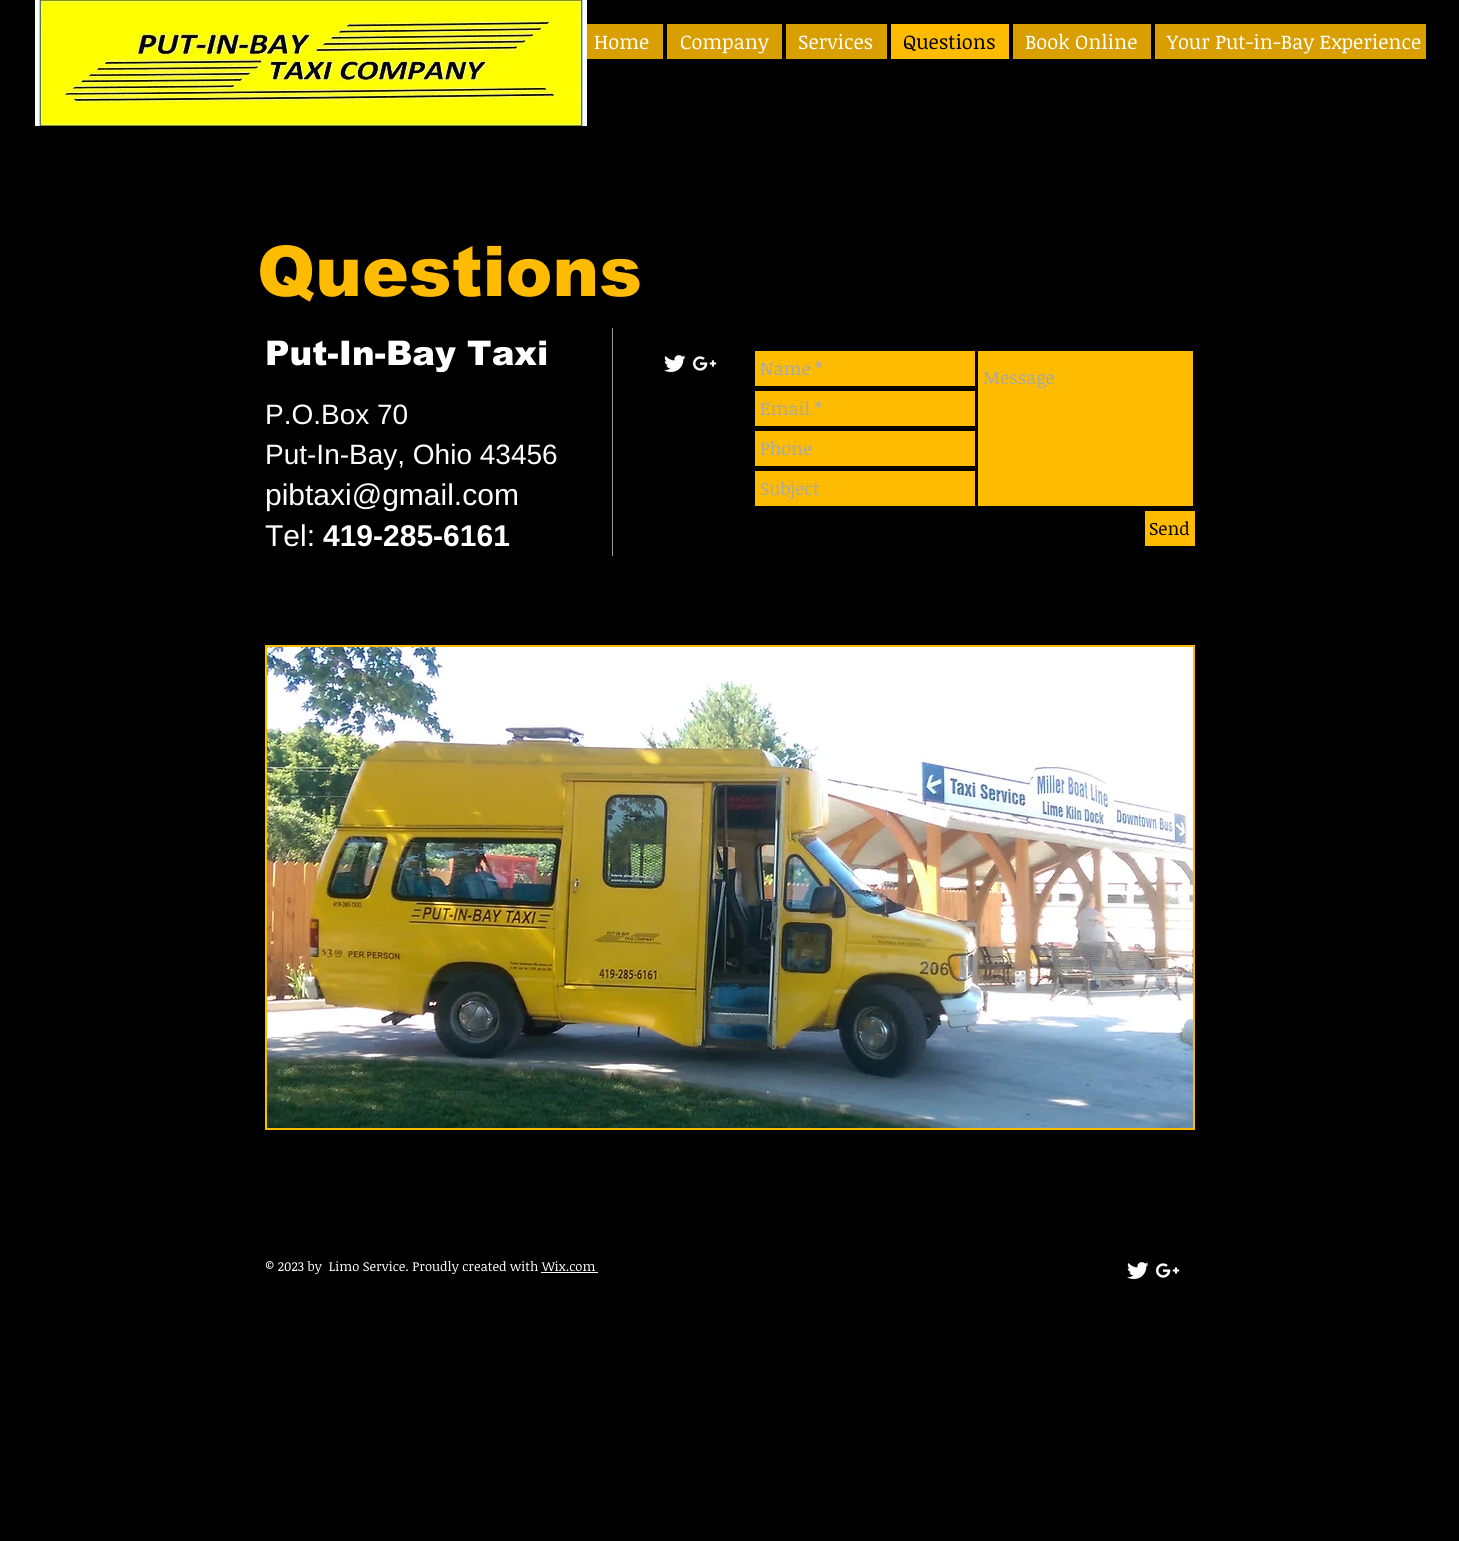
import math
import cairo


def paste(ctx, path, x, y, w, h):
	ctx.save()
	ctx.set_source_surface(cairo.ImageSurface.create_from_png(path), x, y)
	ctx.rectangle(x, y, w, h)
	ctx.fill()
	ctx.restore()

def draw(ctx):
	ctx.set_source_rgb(0, 0, 0)
	ctx.paint()
	paste(ctx, 'media/1.png', 35, 0, 552, 126)
	ctx.set_source_rgb(0.851, 0.624, 0)
	ctx.rectangle(587, 24, 76, 35)
	ctx.fill()
	ctx.select_font_face('Noticia Text')
	ctx.set_font_size(20)
	ctx.set_source_rgb(1, 1, 1)
	ctx.move_to(594, 49)
	ctx.show_text('Home')
	ctx.set_source_rgb(0.851, 0.624, 0)
	ctx.rectangle(667, 24, 115, 35)
	ctx.fill()
	ctx.set_source_rgb(1, 1, 1)
	ctx.move_to(680, 49)
	ctx.show_text('Company')
	ctx.set_source_rgb(0.851, 0.624, 0)
	ctx.rectangle(786, 24, 101, 35)
	ctx.fill()
	ctx.set_source_rgb(1, 1, 1)
	ctx.move_to(798, 49)
	ctx.show_text('Services')
	ctx.set_source_rgb(1, 0.733, 0)
	ctx.rectangle(891, 24, 118, 35)
	ctx.fill()
	ctx.set_source_rgb(0, 0, 0)
	ctx.move_to(903, 49)
	ctx.show_text('Questions')
	ctx.set_source_rgb(0.851, 0.624, 0)
	ctx.rectangle(1013, 24, 138, 35)
	ctx.fill()
	ctx.set_source_rgb(1, 1, 1)
	ctx.move_to(1025, 49)
	ctx.show_text('Book Online')
	ctx.set_source_rgb(0.851, 0.624, 0)
	ctx.rectangle(1155, 24, 271, 35)
	ctx.fill()
	ctx.set_source_rgb(1, 1, 1)
	ctx.move_to(1167, 49)
	ctx.show_text('Your Put-in-Bay Experience')
	ctx.select_font_face('arial Black')
	ctx.set_font_size(70)
	ctx.set_source_rgb(1, 0.733, 0)
	ctx.move_to(257, 296)
	ctx.show_text('Questions')
	ctx.set_font_size(34)
	ctx.set_source_rgb(1, 1, 1)
	ctx.move_to(265, 365)
	ctx.show_text('Put-In-Bay Taxi')
	ctx.set_source_rgb(0.6, 0.6, 0.6)
	ctx.rectangle(612, 328, 1, 228)
	ctx.fill()
	paste(ctx, 'media/2.png', 664, 355, 22, 18)
	paste(ctx, 'media/3.png', 692, 356, 25, 15)
	ctx.set_source_rgb(1, 0.733, 0)
	ctx.rectangle(755, 351, 220, 35)
	ctx.fill()
	ctx.select_font_face('Noticia Text')
	ctx.set_font_size(18)
	ctx.set_source_rgb(0.663, 0.663, 0.663)
	ctx.move_to(760, 375)
	ctx.show_text('Name *')
	ctx.set_source_rgb(1, 0.733, 0)
	ctx.rectangle(978, 351, 215, 155)
	ctx.fill()
	ctx.set_source_rgb(0.663, 0.663, 0.663)
	ctx.move_to(983, 384)
	ctx.show_text('Message')
	ctx.set_source_rgb(1, 0.733, 0)
	ctx.rectangle(755, 391, 220, 35)
	ctx.fill()
	ctx.set_source_rgb(0.663, 0.663, 0.663)
	ctx.move_to(760, 415)
	ctx.show_text('Email *')
	ctx.set_source_rgb(1, 0.733, 0)
	ctx.rectangle(755, 431, 220, 35)
	ctx.fill()
	ctx.set_source_rgb(0.663, 0.663, 0.663)
	ctx.move_to(760, 455)
	ctx.show_text('Phone')
	ctx.set_source_rgb(1, 0.733, 0)
	ctx.rectangle(755, 471, 220, 35)
	ctx.fill()
	ctx.set_source_rgb(0.663, 0.663, 0.663)
	ctx.move_to(760, 495)
	ctx.show_text('Subject')
	ctx.set_source_rgb(1, 0.733, 0)
	ctx.rectangle(1145, 511, 50, 35)
	ctx.fill()
	ctx.set_source_rgb(0, 0, 0)
	ctx.move_to(1149, 535)
	ctx.show_text('Send')
	ctx.select_font_face('Liberation Sans')
	ctx.set_font_size(28)
	ctx.set_source_rgb(1, 1, 1)
	ctx.move_to(265, 424)
	ctx.show_text('P.O.Box 70')
	ctx.move_to(265, 464)
	ctx.show_text('Put-In-Bay, Ohio 43456')
	ctx.set_font_size(30)
	ctx.move_to(265, 505)
	ctx.show_text('pibtaxi@gmail.com')
	ctx.move_to(265, 546)
	ctx.show_text('Tel:')
	ctx.select_font_face('Liberation Sans', cairo.FONT_SLANT_NORMAL, cairo.FONT_WEIGHT_BOLD)
	ctx.move_to(323, 546)
	ctx.show_text('419-285-6161')
	ctx.set_source_rgb(1, 0.733, 0)
	ctx.rectangle(265, 645, 930, 485)
	ctx.fill()
	paste(ctx, 'media/4.png', 267, 647, 926, 481)
	ctx.select_font_face('Noticia Text')
	ctx.set_font_size(13)
	ctx.set_source_rgb(1, 1, 1)
	ctx.move_to(265, 1271)
	ctx.show_text('© 2023 by  Limo Service. Proudly created with Wix.com')
	ctx.rectangle(541, 1272, 57, 1)
	ctx.fill()
	paste(ctx, 'media/2.png', 1127, 1262, 22, 18)
	paste(ctx, 'media/3.png', 1155, 1263, 25, 15)


surface = cairo.ImageSurface(cairo.FORMAT_RGB24, 1459, 1541)
ctx = cairo.Context(surface)
options = cairo.FontOptions()
options.set_hint_metrics(cairo.HINT_METRICS_OFF)
options.set_hint_style(cairo.HINT_STYLE_NONE)
ctx.set_font_options(options)
ctx.set_miter_limit(4)
draw(ctx)
surface.write_to_png('image.png')
